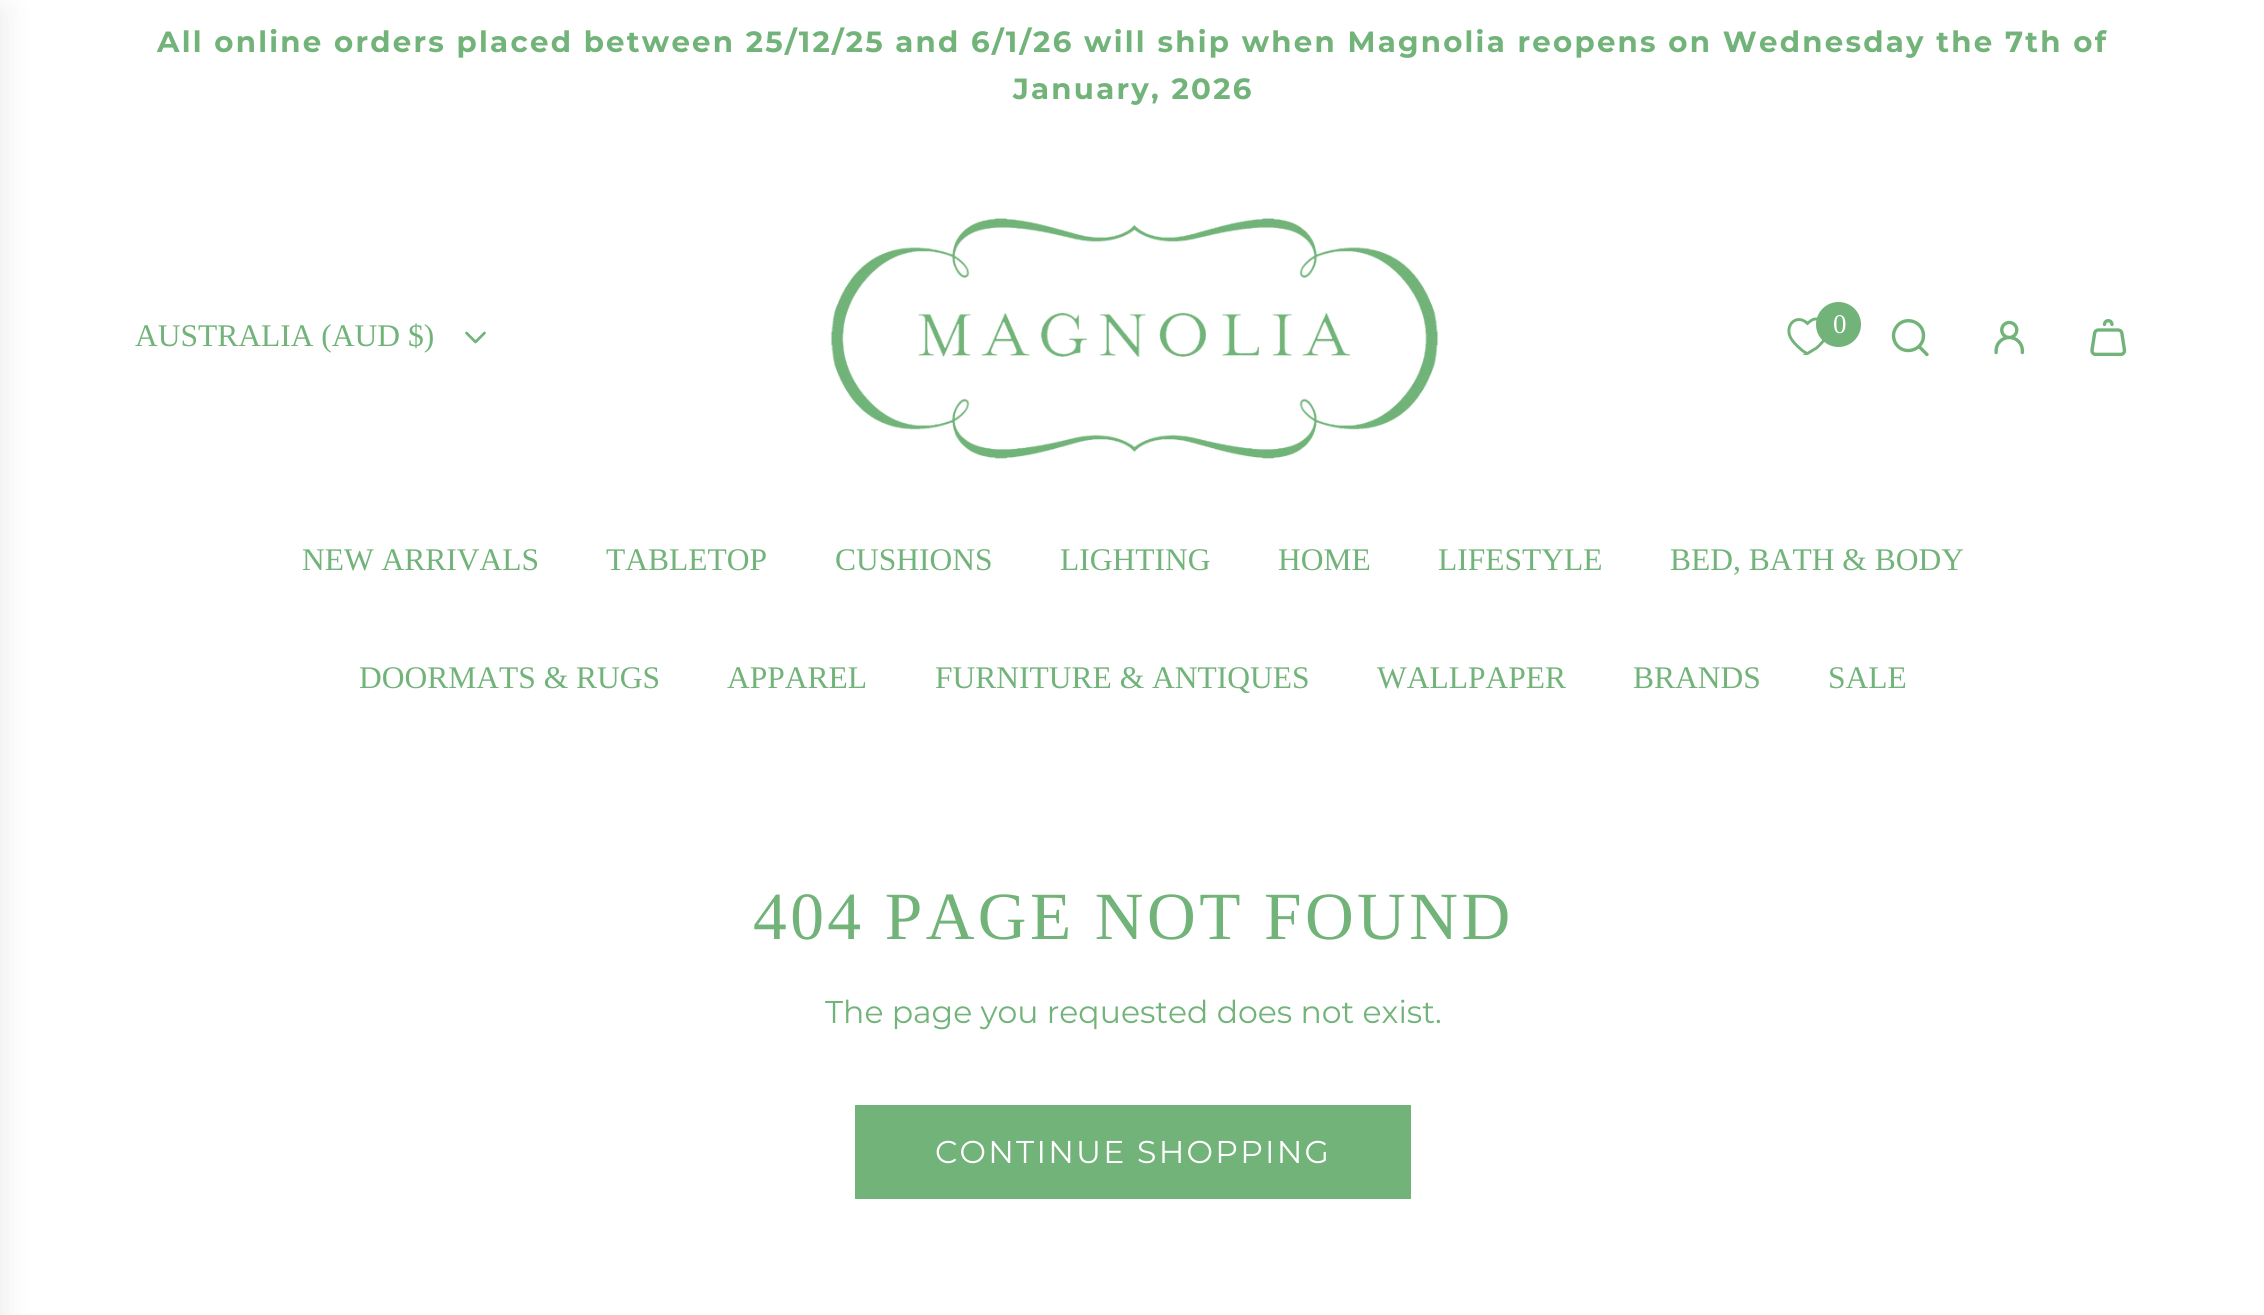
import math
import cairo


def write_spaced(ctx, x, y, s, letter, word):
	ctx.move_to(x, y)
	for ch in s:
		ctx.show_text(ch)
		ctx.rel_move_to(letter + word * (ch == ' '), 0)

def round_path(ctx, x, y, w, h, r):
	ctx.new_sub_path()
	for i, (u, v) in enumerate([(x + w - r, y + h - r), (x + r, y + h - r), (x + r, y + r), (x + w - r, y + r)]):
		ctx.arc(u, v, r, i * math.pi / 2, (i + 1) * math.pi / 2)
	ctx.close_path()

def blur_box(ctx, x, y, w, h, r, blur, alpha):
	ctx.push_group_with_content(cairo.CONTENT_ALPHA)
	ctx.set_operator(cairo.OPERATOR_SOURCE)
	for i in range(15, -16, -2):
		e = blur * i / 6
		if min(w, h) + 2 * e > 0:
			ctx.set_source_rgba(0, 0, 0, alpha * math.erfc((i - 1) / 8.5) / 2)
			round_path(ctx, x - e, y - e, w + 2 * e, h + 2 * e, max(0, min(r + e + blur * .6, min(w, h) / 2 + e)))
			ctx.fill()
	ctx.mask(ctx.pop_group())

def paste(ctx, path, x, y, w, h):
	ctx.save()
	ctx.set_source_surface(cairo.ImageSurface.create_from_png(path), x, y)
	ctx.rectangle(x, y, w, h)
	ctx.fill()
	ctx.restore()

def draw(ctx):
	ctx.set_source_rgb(1, 1, 1)
	ctx.paint()
	ctx.select_font_face('Montserrat', cairo.FONT_SLANT_NORMAL, cairo.FONT_WEIGHT_BOLD)
	ctx.set_font_size(29.25)
	ctx.set_source_rgb(0.443, 0.702, 0.475)
	write_spaced(ctx, 157, 52, 'All online orders placed between 25/12/25 and 6/1/26 will ship when Magnolia reopens on Wednesday the 7th of', 2.25, 0)
	write_spaced(ctx, 1013, 99, 'January, 2026', 2.25, 0)
	ctx.set_source_rgb(0, 0, 0)
	blur_box(ctx, -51, 11, 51, 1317, 0, 17, 0.1)
	ctx.select_font_face('Liberation Serif')
	ctx.set_font_size(31.5)
	ctx.set_source_rgb(0.443, 0.702, 0.475)
	ctx.move_to(135, 346)
	ctx.show_text('AUSTRALIA (AUD $)')
	ctx.new_path()
	ctx.move_to(466.5, 333)
	ctx.line_to(475.5, 342)
	ctx.line_to(484.5, 333)
	ctx.set_line_width(2.7)
	ctx.set_line_cap(cairo.LINE_CAP_ROUND)
	ctx.set_line_join(cairo.LINE_JOIN_ROUND)
	ctx.stroke()
	paste(ctx, 'media/1.png', 830, 218, 609, 241)
	ctx.new_path()
	ctx.move_to(1808, 353.5)
	ctx.curve_to(1805.5, 353.5, 1801, 349.5, 1799.5, 348)
	ctx.curve_to(1795.5, 344.5, 1791, 340, 1789.5, 335)
	ctx.curve_to(1786, 323, 1798, 314, 1807.5, 323.5)
	ctx.curve_to(1809.5, 322, 1810.5, 320.5, 1813, 319.5)
	ctx.curve_to(1821.5, 316.5, 1828.5, 326.5, 1826.5, 334.5)
	ctx.curve_to(1825, 340, 1820.5, 344.5, 1816.5, 348)
	ctx.line_to(1807.5, 353.5)
	ctx.close_path()
	ctx.set_line_width(2.9)
	ctx.set_line_cap(cairo.LINE_CAP_BUTT)
	ctx.set_line_join(cairo.LINE_JOIN_MITER)
	ctx.stroke()
	ctx.arc(1838.5, 324.5, 22.5, 0, 2 * math.pi)
	ctx.fill()
	ctx.set_font_size(27)
	ctx.set_source_rgb(1, 1, 1)
	ctx.move_to(1833, 333)
	ctx.show_text('0')
	ctx.new_path()
	ctx.move_to(1919.5, 347)
	ctx.line_to(1927, 354.5)
	ctx.move_to(1893.5, 335.5)
	ctx.curve_to(1893.5, 338.5, 1894.5, 341.5, 1896, 344)
	ctx.curve_to(1904, 356, 1923.5, 350.5, 1923.5, 335.5)
	ctx.curve_to(1923.5, 321, 1904, 315, 1896, 327.5)
	ctx.curve_to(1894.5, 330, 1893.5, 332.5, 1893.5, 335.5)
	ctx.close_path()
	ctx.set_source_rgb(0.443, 0.702, 0.475)
	ctx.set_line_width(3.4)
	ctx.set_line_cap(cairo.LINE_CAP_ROUND)
	ctx.set_line_join(cairo.LINE_JOIN_ROUND)
	ctx.stroke()
	paste(ctx, 'media/2.png', 1994, 320, 31, 35)
	paste(ctx, 'media/3.png', 2090, 319, 37, 38)
	ctx.set_font_size(31.5)
	for x, y, s in [
		(302, 570, 'NEW ARRIVALS'),
		(606, 570, 'TABLETOP'),
		(835, 570, 'CUSHIONS'),
		(1060, 570, 'LIGHTING'),
		(1278, 570, 'HOME'),
		(1438, 570, 'LIFESTYLE'),
		(1670, 570, 'BED, BATH & BODY'),
		(359, 688, 'DOORMATS & RUGS'),
		(727, 688, 'APPAREL'),
		(935, 688, 'FURNITURE & ANTIQUES'),
		(1377, 688, 'WALLPAPER'),
		(1633, 688, 'BRANDS'),
		(1828, 688, 'SALE'),
	]:
		ctx.move_to(x, y)
		ctx.show_text(s)
	ctx.set_font_size(67.5)
	write_spaced(ctx, 753, 939, '404 PAGE NOT FOUND', 3.4, 0)
	ctx.select_font_face('Montserrat')
	ctx.set_font_size(31.5)
	ctx.move_to(825, 1023)
	ctx.show_text('The page you requested does not exist.')
	ctx.rectangle(855, 1105, 556, 94)
	ctx.fill()
	ctx.set_source_rgb(1, 1, 1)
	write_spaced(ctx, 935, 1163, 'CONTINUE SHOPPING', 2.25, 0)


surface = cairo.ImageSurface(cairo.FORMAT_RGB24, 2264, 1315)
ctx = cairo.Context(surface)
options = cairo.FontOptions()
options.set_hint_metrics(cairo.HINT_METRICS_OFF)
options.set_hint_style(cairo.HINT_STYLE_NONE)
ctx.set_font_options(options)
ctx.set_miter_limit(4)
draw(ctx)
surface.write_to_png('image.png')
